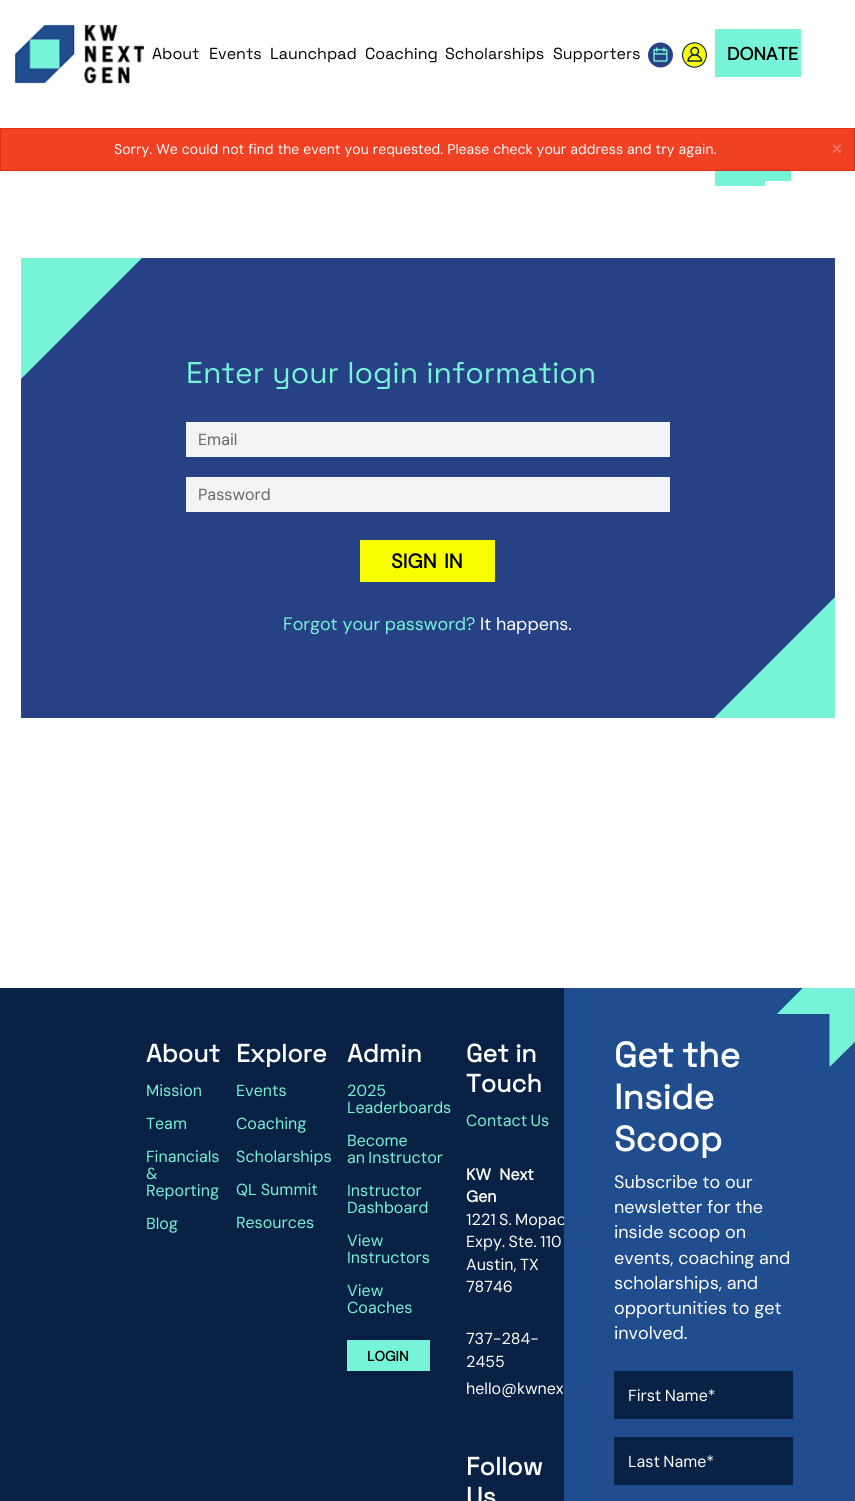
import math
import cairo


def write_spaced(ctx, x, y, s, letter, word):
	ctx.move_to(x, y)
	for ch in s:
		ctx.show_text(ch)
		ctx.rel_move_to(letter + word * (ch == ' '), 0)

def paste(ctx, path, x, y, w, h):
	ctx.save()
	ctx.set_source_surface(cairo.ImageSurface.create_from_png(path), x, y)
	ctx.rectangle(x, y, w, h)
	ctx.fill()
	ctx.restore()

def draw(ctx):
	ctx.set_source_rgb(1, 1, 1)
	ctx.paint()
	paste(ctx, 'media/1.png', 15, 24, 129, 60)
	ctx.select_font_face('Space Grotesk')
	ctx.set_font_size(16)
	ctx.set_source_rgb(0, 0, 0)
	for x, y, s in [
		(152, 59, 'About'),
		(209, 59, 'Events'),
		(270, 59, 'Launchpad'),
		(365, 59, 'Coaching'),
		(445, 59, 'Scholarships'),
		(553, 59, 'Supporters'),
	]:
		ctx.move_to(x, y)
		ctx.show_text(s)
	paste(ctx, 'media/2.png', 648, 42, 25, 26)
	paste(ctx, 'media/3.png', 682, 42, 25, 26)
	ctx.set_source_rgb(0.467, 0.957, 0.843)
	ctx.rectangle(715, 29, 86, 48)
	ctx.fill()
	ctx.select_font_face('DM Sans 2', cairo.FONT_SLANT_NORMAL, cairo.FONT_WEIGHT_BOLD)
	ctx.set_font_size(18)
	ctx.set_source_rgb(0, 0, 0)
	ctx.move_to(727, 60)
	ctx.show_text('DONATE')
	ctx.set_source_rgb(0.467, 0.957, 0.843)
	ctx.rectangle(715, 171, 50, 15)
	ctx.fill()
	ctx.rectangle(765, 171, 26, 10)
	ctx.fill()
	ctx.set_source_rgb(0.941, 0.255, 0.141)
	ctx.rectangle(0.5, 128.5, 854, 42)
	ctx.fill_preserve()
	ctx.set_source_rgb(0.871, 0.176, 0.059)
	ctx.set_line_width(1)
	ctx.stroke()
	ctx.select_font_face('DM Sans')
	ctx.set_font_size(14)
	ctx.set_source_rgb(1, 1, 1)
	write_spaced(ctx, 114, 154, 'Sorry. We could not find the event you requested. Please check your address and try again.', 0, 0.25)
	ctx.set_font_size(25)
	ctx.set_source_rgb(0.961, 0.478, 0.4)
	ctx.move_to(830, 156)
	ctx.show_text('×')
	ctx.set_source_rgb(0.467, 0.957, 0.843)
	ctx.rectangle(21, 258, 814, 460)
	ctx.fill()
	ctx.set_source_rgb(0.149, 0.255, 0.518)
	ctx.new_path()
	ctx.move_to(21, 379)
	ctx.line_to(142, 258)
	ctx.line_to(835, 258)
	ctx.line_to(835, 597)
	ctx.line_to(714, 718)
	ctx.line_to(21, 718)
	ctx.close_path()
	ctx.fill()
	ctx.select_font_face('Space Grotesk')
	ctx.set_font_size(30)
	ctx.set_source_rgb(0.467, 0.957, 0.843)
	write_spaced(ctx, 186, 383, 'Enter your login information', 0, 0.5)
	ctx.set_source_rgb(0.957, 0.957, 0.957)
	ctx.rectangle(186, 422, 484, 35)
	ctx.fill()
	ctx.select_font_face('DM Sans')
	ctx.set_font_size(16)
	ctx.set_source_rgb(0.4, 0.4, 0.4)
	ctx.move_to(198, 445)
	ctx.show_text('Email')
	ctx.set_source_rgb(0.957, 0.957, 0.957)
	ctx.rectangle(186, 477, 484, 35)
	ctx.fill()
	ctx.set_source_rgb(0.4, 0.4, 0.4)
	ctx.move_to(198, 500)
	ctx.show_text('Password')
	ctx.set_source_rgb(0.98, 1, 0)
	ctx.rectangle(360, 540, 135, 42)
	ctx.fill()
	ctx.select_font_face('DM Sans', cairo.FONT_SLANT_NORMAL, cairo.FONT_WEIGHT_BOLD)
	ctx.set_font_size(20)
	ctx.set_source_rgb(0, 0, 0)
	write_spaced(ctx, 391, 568, 'SIGN IN', 0, 2)
	ctx.select_font_face('DM Sans 2')
	ctx.set_font_size(18)
	ctx.set_source_rgb(0.467, 0.957, 0.843)
	ctx.move_to(283, 630)
	ctx.show_text('Forgot your password?')
	ctx.set_source_rgb(1, 1, 1)
	ctx.move_to(480, 630)
	ctx.show_text('It happens.')
	ctx.set_source_rgb(0.035, 0.129, 0.271)
	ctx.rectangle(0, 988, 564, 513)
	ctx.fill()
	ctx.select_font_face('Space Grotesk', cairo.FONT_SLANT_NORMAL, cairo.FONT_WEIGHT_BOLD)
	ctx.set_font_size(25)
	ctx.set_source_rgb(1, 1, 1)
	ctx.move_to(146, 1062)
	ctx.show_text('About')
	ctx.select_font_face('DM Sans')
	ctx.set_font_size(16)
	ctx.set_source_rgb(0.467, 0.957, 0.843)
	for x, y, s in [
		(146, 1096, 'Mission'),
		(146, 1129, 'Team'),
		(146, 1162, 'Financials'),
		(146, 1179, '&'),
		(146, 1196, 'Reporting'),
		(146, 1229, 'Blog'),
	]:
		ctx.move_to(x, y)
		ctx.show_text(s)
	ctx.select_font_face('Space Grotesk', cairo.FONT_SLANT_NORMAL, cairo.FONT_WEIGHT_BOLD)
	ctx.set_font_size(25)
	ctx.set_source_rgb(1, 1, 1)
	ctx.move_to(236, 1062)
	ctx.show_text('Explore')
	ctx.select_font_face('DM Sans')
	ctx.set_font_size(16)
	ctx.set_source_rgb(0.467, 0.957, 0.843)
	for x, y, s in [
		(236, 1096, 'Events'),
		(236, 1129, 'Coaching'),
		(236, 1162, 'Scholarships'),
		(236, 1195, 'QL Summit'),
		(236, 1228, 'Resources'),
	]:
		ctx.move_to(x, y)
		ctx.show_text(s)
	ctx.select_font_face('Space Grotesk', cairo.FONT_SLANT_NORMAL, cairo.FONT_WEIGHT_BOLD)
	ctx.set_font_size(25)
	ctx.set_source_rgb(1, 1, 1)
	ctx.move_to(347, 1062)
	ctx.show_text('Admin')
	ctx.select_font_face('DM Sans')
	ctx.set_font_size(16)
	ctx.set_source_rgb(0.467, 0.957, 0.843)
	for x, y, s in [
		(347, 1096, '2025'),
		(347, 1113, 'Leaderboards'),
		(347, 1146, 'Become'),
	]:
		ctx.move_to(x, y)
		ctx.show_text(s)
	write_spaced(ctx, 347, 1163, 'an Instructor', 0, -1)
	for x, y, s in [
		(347, 1196, 'Instructor'),
		(347, 1213, 'Dashboard'),
		(347, 1246, 'View'),
		(347, 1263, 'Instructors'),
		(347, 1296, 'View'),
		(347, 1313, 'Coaches'),
	]:
		ctx.move_to(x, y)
		ctx.show_text(s)
	ctx.rectangle(347, 1340, 83, 31)
	ctx.fill()
	ctx.select_font_face('DM Sans', cairo.FONT_SLANT_NORMAL, cairo.FONT_WEIGHT_BOLD)
	ctx.set_font_size(14)
	ctx.set_source_rgb(0, 0, 0)
	ctx.move_to(367, 1361)
	ctx.show_text('LOGIN')
	ctx.select_font_face('Space Grotesk', cairo.FONT_SLANT_NORMAL, cairo.FONT_WEIGHT_BOLD)
	ctx.set_font_size(25)
	ctx.set_source_rgb(1, 1, 1)
	ctx.move_to(466, 1062)
	ctx.show_text('Get in')
	ctx.move_to(466, 1092)
	ctx.show_text('Touch')
	ctx.select_font_face('DM Sans')
	ctx.set_font_size(16)
	ctx.set_source_rgb(0.467, 0.957, 0.843)
	write_spaced(ctx, 466, 1126, 'Contact Us', 0, -1)
	ctx.select_font_face('DM Sans', cairo.FONT_SLANT_NORMAL, cairo.FONT_WEIGHT_BOLD)
	ctx.set_source_rgb(1, 1, 1)
	write_spaced(ctx, 466, 1180, 'KW Next', 0, 4)
	ctx.move_to(466, 1202)
	ctx.show_text('Gen')
	ctx.select_font_face('DM Sans')
	for x, y, s in [
		(466, 1225, '1221 S. Mopac'),
		(466, 1247, 'Expy. Ste. 110'),
		(466, 1270, 'Austin, TX'),
	]:
		write_spaced(ctx, x, y, s, 0, -1)
	for x, y, s in [
		(466, 1292, '78746'),
		(466, 1344, '737-284-'),
		(466, 1367, '2455'),
		(466, 1394, 'hello@kwnex'),
	]:
		ctx.move_to(x, y)
		ctx.show_text(s)
	ctx.select_font_face('Space Grotesk', cairo.FONT_SLANT_NORMAL, cairo.FONT_WEIGHT_BOLD)
	ctx.set_font_size(25)
	ctx.move_to(466, 1475)
	ctx.show_text('Follow')
	ctx.move_to(466, 1505)
	ctx.show_text('Us')
	ctx.set_source_rgb(0.125, 0.302, 0.557)
	ctx.rectangle(564, 988, 291, 513)
	ctx.fill()
	paste(ctx, 'media/4.png', 777, 988, 78, 79)
	ctx.set_font_size(35)
	ctx.set_source_rgb(1, 1, 1)
	write_spaced(ctx, 614, 1067, 'Get the', 0, -1)
	ctx.move_to(614, 1109)
	ctx.show_text('Inside')
	ctx.move_to(614, 1151)
	ctx.show_text('Scoop')
	ctx.select_font_face('DM Sans 2')
	ctx.set_font_size(18)
	for x, y, s in [
		(614, 1188, 'Subscribe to our'),
		(614, 1213, 'newsletter for the'),
		(614, 1238, 'inside scoop on'),
		(614, 1264, 'events, coaching and'),
		(614, 1289, 'scholarships, and'),
		(614, 1314, 'opportunities to get'),
		(614, 1339, 'involved.'),
	]:
		ctx.move_to(x, y)
		ctx.show_text(s)
	ctx.set_source_rgb(0.035, 0.129, 0.271)
	ctx.rectangle(614, 1371, 179, 48)
	ctx.fill()
	ctx.select_font_face('DM Sans')
	ctx.set_font_size(16)
	ctx.set_source_rgb(1, 1, 1)
	write_spaced(ctx, 628, 1401, 'First Name*', 0, -1)
	ctx.set_source_rgb(0.035, 0.129, 0.271)
	ctx.rectangle(614, 1437, 179, 48)
	ctx.fill()
	ctx.set_source_rgb(1, 1, 1)
	write_spaced(ctx, 628, 1467, 'Last Name*', 0, -1)


surface = cairo.ImageSurface(cairo.FORMAT_RGB24, 855, 1501)
ctx = cairo.Context(surface)
options = cairo.FontOptions()
options.set_hint_metrics(cairo.HINT_METRICS_OFF)
options.set_hint_style(cairo.HINT_STYLE_NONE)
ctx.set_font_options(options)
ctx.set_miter_limit(4)
draw(ctx)
surface.write_to_png('image.png')
